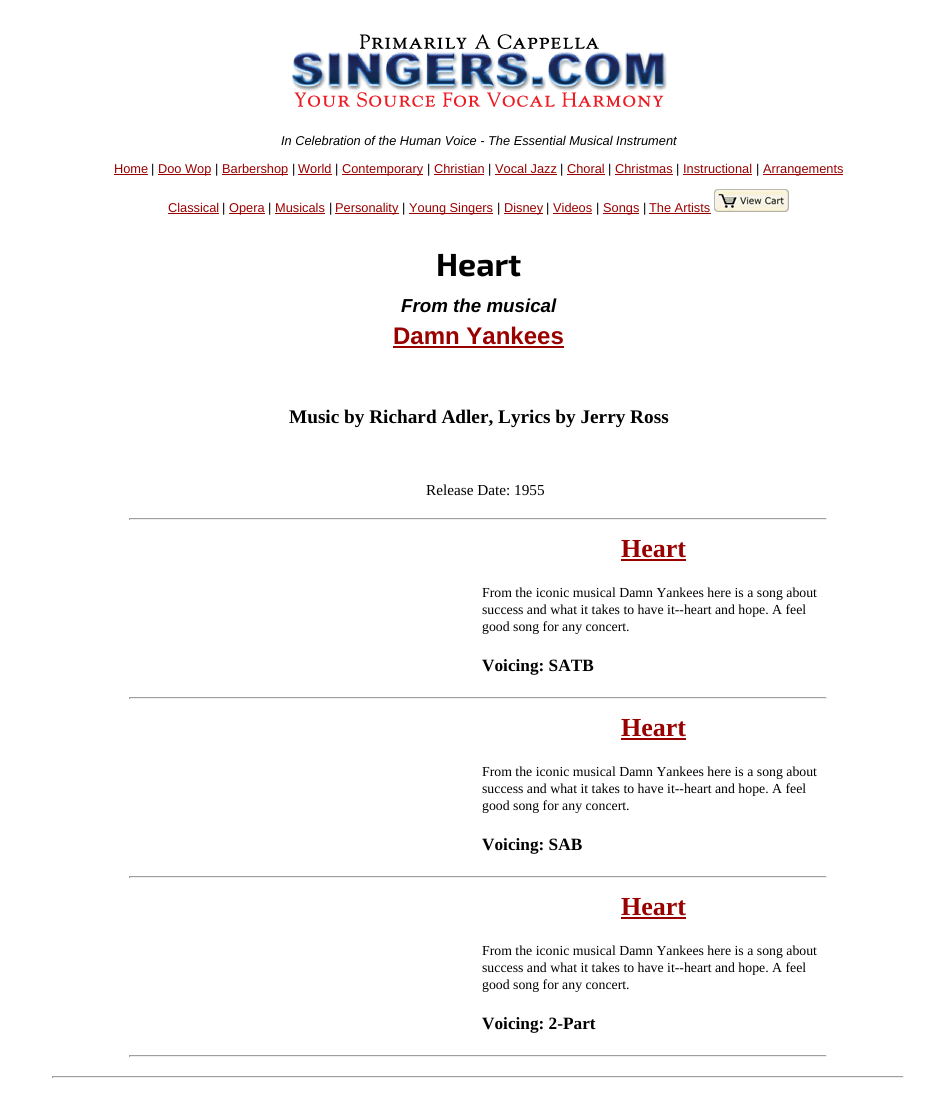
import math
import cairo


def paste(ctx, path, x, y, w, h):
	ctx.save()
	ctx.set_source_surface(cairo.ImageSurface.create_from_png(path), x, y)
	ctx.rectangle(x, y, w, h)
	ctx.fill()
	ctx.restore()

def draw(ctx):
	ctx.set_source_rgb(1, 1, 1)
	ctx.paint()
	paste(ctx, 'media/1.png', 292, 34, 375, 73)
	ctx.select_font_face('Liberation Sans', cairo.FONT_SLANT_ITALIC)
	ctx.set_font_size(12.8)
	ctx.set_source_rgb(0, 0, 0)
	ctx.move_to(281, 145)
	ctx.show_text('In Celebration of the Human Voice - The Essential Musical Instrument')
	ctx.select_font_face('Liberation Sans')
	ctx.set_source_rgb(0.6, 0, 0)
	ctx.move_to(114, 173)
	ctx.show_text('Home')
	ctx.rectangle(114, 174, 34, 1)
	ctx.fill()
	ctx.set_source_rgb(0, 0, 0)
	ctx.move_to(151, 173)
	ctx.show_text('|')
	ctx.set_source_rgb(0.6, 0, 0)
	ctx.rectangle(158, 174, 53, 1)
	ctx.fill()
	ctx.move_to(158, 173)
	ctx.show_text('Doo Wop')
	ctx.set_source_rgb(0, 0, 0)
	ctx.move_to(215, 173)
	ctx.show_text('|')
	ctx.set_source_rgb(0.6, 0, 0)
	ctx.rectangle(222, 174, 66, 1)
	ctx.fill()
	ctx.move_to(222, 173)
	ctx.show_text('Barbershop')
	ctx.set_source_rgb(0, 0, 0)
	ctx.move_to(292, 173)
	ctx.show_text('|')
	ctx.set_source_rgb(0.6, 0, 0)
	ctx.move_to(298, 173)
	ctx.show_text('World')
	ctx.rectangle(298, 174, 34, 1)
	ctx.fill()
	ctx.set_source_rgb(0, 0, 0)
	ctx.move_to(335, 173)
	ctx.show_text('|')
	ctx.set_source_rgb(0.6, 0, 0)
	ctx.rectangle(342, 174, 81, 1)
	ctx.fill()
	ctx.move_to(342, 173)
	ctx.show_text('Contemporary')
	ctx.set_source_rgb(0, 0, 0)
	ctx.move_to(427, 173)
	ctx.show_text('|')
	ctx.set_source_rgb(0.6, 0, 0)
	ctx.move_to(434, 173)
	ctx.show_text('Christian')
	ctx.rectangle(434, 174, 50, 1)
	ctx.fill()
	ctx.set_source_rgb(0, 0, 0)
	ctx.move_to(488, 173)
	ctx.show_text('|')
	ctx.set_source_rgb(0.6, 0, 0)
	ctx.move_to(495, 173)
	ctx.show_text('Vocal Jazz')
	ctx.rectangle(495, 174, 62, 1)
	ctx.fill()
	ctx.set_source_rgb(0, 0, 0)
	ctx.move_to(560, 173)
	ctx.show_text('|')
	ctx.set_source_rgb(0.6, 0, 0)
	ctx.move_to(567, 173)
	ctx.show_text('Choral')
	ctx.rectangle(567, 174, 38, 1)
	ctx.fill()
	ctx.set_source_rgb(0, 0, 0)
	ctx.move_to(608, 173)
	ctx.show_text('|')
	ctx.set_source_rgb(0.6, 0, 0)
	ctx.move_to(615, 173)
	ctx.show_text('Christmas')
	ctx.rectangle(615, 174, 58, 1)
	ctx.fill()
	ctx.set_source_rgb(0, 0, 0)
	ctx.move_to(676, 173)
	ctx.show_text('|')
	ctx.set_source_rgb(0.6, 0, 0)
	ctx.move_to(683, 173)
	ctx.show_text('Instructional')
	ctx.rectangle(683, 174, 69, 1)
	ctx.fill()
	ctx.set_source_rgb(0, 0, 0)
	ctx.move_to(756, 173)
	ctx.show_text('|')
	ctx.set_source_rgb(0.6, 0, 0)
	ctx.rectangle(763, 174, 80, 1)
	ctx.fill()
	ctx.move_to(763, 173)
	ctx.show_text('Arrangements')
	ctx.move_to(168, 212)
	ctx.show_text('Classical')
	ctx.rectangle(168, 213, 51, 1)
	ctx.fill()
	ctx.set_source_rgb(0, 0, 0)
	ctx.move_to(222, 212)
	ctx.show_text('|')
	ctx.set_source_rgb(0.6, 0, 0)
	ctx.rectangle(229, 213, 36, 1)
	ctx.fill()
	ctx.move_to(229, 212)
	ctx.show_text('Opera')
	ctx.set_source_rgb(0, 0, 0)
	ctx.move_to(268, 212)
	ctx.show_text('|')
	ctx.set_source_rgb(0.6, 0, 0)
	ctx.move_to(275, 212)
	ctx.show_text('Musicals')
	ctx.rectangle(275, 213, 50, 1)
	ctx.fill()
	ctx.set_source_rgb(0, 0, 0)
	ctx.move_to(329, 212)
	ctx.show_text('|')
	ctx.set_source_rgb(0.6, 0, 0)
	ctx.rectangle(335, 213, 64, 1)
	ctx.fill()
	ctx.move_to(335, 212)
	ctx.show_text('Personality')
	ctx.set_source_rgb(0, 0, 0)
	ctx.move_to(402, 212)
	ctx.show_text('|')
	ctx.set_source_rgb(0.6, 0, 0)
	ctx.rectangle(409, 213, 84, 1)
	ctx.fill()
	ctx.move_to(409, 212)
	ctx.show_text('Young Singers')
	ctx.set_source_rgb(0, 0, 0)
	ctx.move_to(497, 212)
	ctx.show_text('|')
	ctx.set_source_rgb(0.6, 0, 0)
	ctx.rectangle(504, 213, 39, 1)
	ctx.fill()
	ctx.move_to(504, 212)
	ctx.show_text('Disney')
	ctx.set_source_rgb(0, 0, 0)
	ctx.move_to(546, 212)
	ctx.show_text('|')
	ctx.set_source_rgb(0.6, 0, 0)
	ctx.move_to(553, 212)
	ctx.show_text('Videos')
	ctx.rectangle(553, 213, 39, 1)
	ctx.fill()
	ctx.set_source_rgb(0, 0, 0)
	ctx.move_to(596, 212)
	ctx.show_text('|')
	ctx.set_source_rgb(0.6, 0, 0)
	ctx.rectangle(603, 213, 36, 1)
	ctx.fill()
	ctx.move_to(603, 212)
	ctx.show_text('Songs')
	ctx.set_source_rgb(0, 0, 0)
	ctx.move_to(643, 212)
	ctx.show_text('|')
	ctx.set_source_rgb(0.6, 0, 0)
	ctx.move_to(649, 212)
	ctx.show_text('The Artists')
	ctx.rectangle(649, 213, 62, 1)
	ctx.fill()
	paste(ctx, 'media/2.png', 714, 189, 75, 23)
	ctx.select_font_face('Exo 2', cairo.FONT_SLANT_NORMAL, cairo.FONT_WEIGHT_BOLD)
	ctx.set_font_size(32)
	ctx.set_source_rgb(0, 0, 0)
	ctx.move_to(436, 276)
	ctx.show_text('Heart')
	ctx.select_font_face('Liberation Sans', cairo.FONT_SLANT_ITALIC, cairo.FONT_WEIGHT_BOLD)
	ctx.set_font_size(18.75)
	ctx.move_to(401, 312)
	ctx.show_text('From the musical')
	ctx.select_font_face('Liberation Sans', cairo.FONT_SLANT_NORMAL, cairo.FONT_WEIGHT_BOLD)
	ctx.set_font_size(24)
	ctx.set_source_rgb(0.6, 0, 0)
	ctx.move_to(393, 344)
	ctx.show_text('Damn Yankees')
	ctx.rectangle(393, 346, 171, 2)
	ctx.fill()
	ctx.select_font_face('Liberation Serif', cairo.FONT_SLANT_NORMAL, cairo.FONT_WEIGHT_BOLD)
	ctx.set_font_size(19.25)
	ctx.set_source_rgb(0, 0, 0)
	ctx.move_to(289, 423)
	ctx.show_text('Music by Richard Adler, Lyrics by Jerry Ross')
	ctx.select_font_face('Liberation Serif')
	ctx.set_font_size(15.25)
	ctx.move_to(426, 495)
	ctx.show_text('Release Date: 1955')
	ctx.set_source_rgb(0.624, 0.624, 0.624)
	ctx.rectangle(129, 518, 698, 1)
	ctx.fill()
	ctx.set_source_rgb(0.933, 0.933, 0.933)
	ctx.rectangle(826, 518, 1, 2)
	ctx.rectangle(129, 519, 698, 1)
	ctx.fill()
	ctx.set_source_rgb(0.624, 0.624, 0.624)
	ctx.rectangle(129, 518, 1, 2)
	ctx.fill()
	ctx.select_font_face('Liberation Serif', cairo.FONT_SLANT_NORMAL, cairo.FONT_WEIGHT_BOLD)
	ctx.set_font_size(26)
	ctx.set_source_rgb(0.6, 0, 0)
	ctx.move_to(621, 557)
	ctx.show_text('Heart')
	ctx.rectangle(621, 559, 65, 2)
	ctx.fill()
	ctx.select_font_face('Liberation Serif')
	ctx.set_font_size(13.8)
	ctx.set_source_rgb(0, 0, 0)
	for x, y, s in [
		(482, 597, 'From the iconic musical Damn Yankees here is a song about'),
		(482, 614, 'success and what it takes to have it--heart and hope. A feel'),
		(482, 631, 'good song for any concert.'),
	]:
		ctx.move_to(x, y)
		ctx.show_text(s)
	ctx.select_font_face('Liberation Serif', cairo.FONT_SLANT_NORMAL, cairo.FONT_WEIGHT_BOLD)
	ctx.set_font_size(17.25)
	ctx.move_to(482, 671)
	ctx.show_text('Voicing: SATB')
	ctx.set_source_rgb(0.624, 0.624, 0.624)
	ctx.rectangle(129, 697, 698, 1)
	ctx.fill()
	ctx.set_source_rgb(0.933, 0.933, 0.933)
	ctx.rectangle(826, 697, 1, 2)
	ctx.rectangle(129, 698, 698, 1)
	ctx.fill()
	ctx.set_source_rgb(0.624, 0.624, 0.624)
	ctx.rectangle(129, 697, 1, 2)
	ctx.fill()
	ctx.set_font_size(26)
	ctx.set_source_rgb(0.6, 0, 0)
	ctx.move_to(621, 736)
	ctx.show_text('Heart')
	ctx.rectangle(621, 738, 65, 2)
	ctx.fill()
	ctx.select_font_face('Liberation Serif')
	ctx.set_font_size(13.8)
	ctx.set_source_rgb(0, 0, 0)
	for x, y, s in [
		(482, 776, 'From the iconic musical Damn Yankees here is a song about'),
		(482, 793, 'success and what it takes to have it--heart and hope. A feel'),
		(482, 810, 'good song for any concert.'),
	]:
		ctx.move_to(x, y)
		ctx.show_text(s)
	ctx.select_font_face('Liberation Serif', cairo.FONT_SLANT_NORMAL, cairo.FONT_WEIGHT_BOLD)
	ctx.set_font_size(17.25)
	ctx.move_to(482, 850)
	ctx.show_text('Voicing: SAB')
	ctx.set_source_rgb(0.624, 0.624, 0.624)
	ctx.rectangle(129, 876, 698, 1)
	ctx.fill()
	ctx.set_source_rgb(0.933, 0.933, 0.933)
	ctx.rectangle(826, 876, 1, 2)
	ctx.rectangle(129, 877, 698, 1)
	ctx.fill()
	ctx.set_source_rgb(0.624, 0.624, 0.624)
	ctx.rectangle(129, 876, 1, 2)
	ctx.fill()
	ctx.set_font_size(26)
	ctx.set_source_rgb(0.6, 0, 0)
	ctx.move_to(621, 915)
	ctx.show_text('Heart')
	ctx.rectangle(621, 917, 65, 2)
	ctx.fill()
	ctx.select_font_face('Liberation Serif')
	ctx.set_font_size(13.8)
	ctx.set_source_rgb(0, 0, 0)
	for x, y, s in [
		(482, 955, 'From the iconic musical Damn Yankees here is a song about'),
		(482, 972, 'success and what it takes to have it--heart and hope. A feel'),
		(482, 989, 'good song for any concert.'),
	]:
		ctx.move_to(x, y)
		ctx.show_text(s)
	ctx.select_font_face('Liberation Serif', cairo.FONT_SLANT_NORMAL, cairo.FONT_WEIGHT_BOLD)
	ctx.set_font_size(17.25)
	ctx.move_to(482, 1029)
	ctx.show_text('Voicing: 2-Part')
	ctx.set_source_rgb(0.624, 0.624, 0.624)
	ctx.rectangle(129, 1055, 698, 1)
	ctx.fill()
	ctx.set_source_rgb(0.933, 0.933, 0.933)
	ctx.rectangle(826, 1055, 1, 2)
	ctx.rectangle(129, 1056, 698, 1)
	ctx.fill()
	ctx.set_source_rgb(0.624, 0.624, 0.624)
	ctx.rectangle(129, 1055, 1, 2)
	ctx.rectangle(52, 1076, 852, 1)
	ctx.fill()
	ctx.set_source_rgb(0.933, 0.933, 0.933)
	ctx.rectangle(903, 1076, 1, 2)
	ctx.rectangle(52, 1077, 852, 1)
	ctx.fill()
	ctx.set_source_rgb(0.624, 0.624, 0.624)
	ctx.rectangle(52, 1076, 1, 2)
	ctx.fill()


surface = cairo.ImageSurface(cairo.FORMAT_RGB24, 950, 1096)
ctx = cairo.Context(surface)
options = cairo.FontOptions()
options.set_hint_metrics(cairo.HINT_METRICS_OFF)
options.set_hint_style(cairo.HINT_STYLE_NONE)
ctx.set_font_options(options)
ctx.set_miter_limit(4)
draw(ctx)
surface.write_to_png('image.png')
